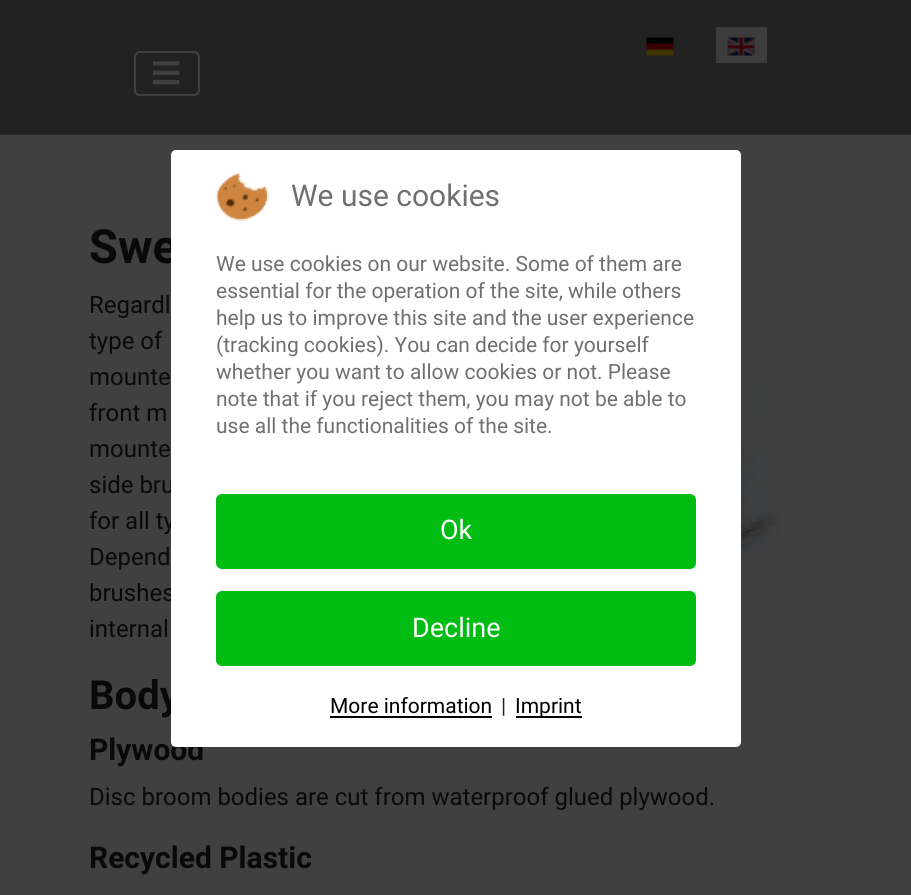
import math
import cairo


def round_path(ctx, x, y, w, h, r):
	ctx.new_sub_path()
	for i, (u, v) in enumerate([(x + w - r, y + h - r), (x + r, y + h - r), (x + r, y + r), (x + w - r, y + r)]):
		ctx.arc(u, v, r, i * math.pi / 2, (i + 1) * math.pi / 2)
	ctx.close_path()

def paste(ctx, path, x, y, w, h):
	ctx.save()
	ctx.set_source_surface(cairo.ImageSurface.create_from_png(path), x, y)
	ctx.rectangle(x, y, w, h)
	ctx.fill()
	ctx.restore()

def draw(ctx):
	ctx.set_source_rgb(0.251, 0.251, 0.251)
	ctx.paint()
	ctx.set_source_rgb(0.133, 0.133, 0.137)
	ctx.rectangle(0, 0, 911, 135)
	ctx.fill()
	paste(ctx, 'media/1.png', 646, 37, 28, 19)
	ctx.set_source_rgb(0.235, 0.235, 0.235)
	ctx.rectangle(716, 27, 51, 36)
	ctx.fill()
	paste(ctx, 'media/2.png', 727, 37, 28, 19)
	round_path(ctx, 135, 52, 64, 43, 5)
	ctx.set_source_rgb(0.251, 0.251, 0.251)
	ctx.stroke()
	paste(ctx, 'media/3.png', 153, 61, 27, 24)
	ctx.select_font_face('Roboto', cairo.FONT_SLANT_NORMAL, cairo.FONT_WEIGHT_BOLD)
	ctx.set_font_size(47)
	ctx.set_source_rgb(0.035, 0.039, 0.043)
	ctx.move_to(89, 263)
	ctx.show_text('Swe')
	ctx.select_font_face('Roboto')
	ctx.set_font_size(24)
	for x, y, s in [
		(89, 493, 'side bru'),
		(89, 529, 'for all ty'),
		(89, 601, 'brushes'),
	]:
		ctx.move_to(x, y)
		ctx.show_text(s)
	ctx.select_font_face('Roboto', cairo.FONT_SLANT_NORMAL, cairo.FONT_WEIGHT_BOLD)
	ctx.set_font_size(40)
	ctx.move_to(89, 709)
	ctx.show_text('Body')
	ctx.set_font_size(30)
	ctx.move_to(89, 760)
	ctx.show_text('Plywood')
	ctx.set_source_rgb(1, 1, 1)
	round_path(ctx, 171, 150, 570, 597, 5)
	ctx.fill()
	paste(ctx, 'media/4.png', 216, 172, 53, 49)
	ctx.select_font_face('Roboto')
	ctx.set_source_rgb(0.439, 0.439, 0.439)
	ctx.move_to(291, 206)
	ctx.show_text('We use cookies')
	ctx.set_font_size(21)
	for x, y, s in [
		(216, 271, 'We use cookies on our website. Some of them are'),
		(216, 298, 'essential for the operation of the site, while others'),
		(216, 325, 'help us to improve this site and the user experience'),
		(216, 352, '(tracking cookies). You can decide for yourself'),
		(216, 379, 'whether you want to allow cookies or not. Please'),
		(216, 406, 'note that if you reject them, you may not be able to'),
		(216, 433, 'use all the functionalities of the site.'),
	]:
		ctx.move_to(x, y)
		ctx.show_text(s)
	ctx.set_source_rgb(0, 0.737, 0.075)
	round_path(ctx, 216, 494, 480, 75, 6)
	ctx.fill()
	ctx.set_font_size(27)
	ctx.set_source_rgb(1, 1, 1)
	ctx.move_to(440, 539)
	ctx.show_text('Ok')
	ctx.set_source_rgb(0, 0.737, 0.075)
	round_path(ctx, 216, 591, 480, 75, 6)
	ctx.fill()
	ctx.set_source_rgb(1, 1, 1)
	ctx.move_to(412, 637)
	ctx.show_text('Decline')
	ctx.set_font_size(21)
	ctx.set_source_rgb(0, 0, 0)
	ctx.move_to(330, 713)
	ctx.show_text('More information')
	ctx.rectangle(330, 716, 162, 2)
	ctx.fill()
	ctx.set_source_rgb(0.133, 0.149, 0.165)
	ctx.move_to(501, 713)
	ctx.show_text('|')
	ctx.set_source_rgb(0, 0, 0)
	ctx.rectangle(516, 716, 66, 2)
	ctx.fill()
	ctx.move_to(515, 713)
	ctx.show_text('Imprint')
	paste(ctx, 'media/5.png', 741, 274, 40, 296)
	ctx.set_font_size(24)
	ctx.set_source_rgb(0.035, 0.039, 0.043)
	for x, y, s in [
		(89, 313, 'Regardl'),
		(89, 349, 'type of'),
		(89, 385, 'mounte'),
		(89, 421, 'front m'),
		(89, 457, 'mounte'),
		(89, 565, 'Depend'),
		(89, 637, 'internal'),
		(89, 805, 'Disc broom bodies are cut from waterproof glued plywood.'),
	]:
		ctx.move_to(x, y)
		ctx.show_text(s)
	ctx.select_font_face('Roboto', cairo.FONT_SLANT_NORMAL, cairo.FONT_WEIGHT_BOLD)
	ctx.set_font_size(30)
	ctx.move_to(89, 868)
	ctx.show_text('Recycled Plastic')


surface = cairo.ImageSurface(cairo.FORMAT_RGB24, 911, 895)
ctx = cairo.Context(surface)
options = cairo.FontOptions()
options.set_hint_metrics(cairo.HINT_METRICS_OFF)
options.set_hint_style(cairo.HINT_STYLE_NONE)
ctx.set_font_options(options)
ctx.set_miter_limit(4)
draw(ctx)
surface.write_to_png('image.png')
